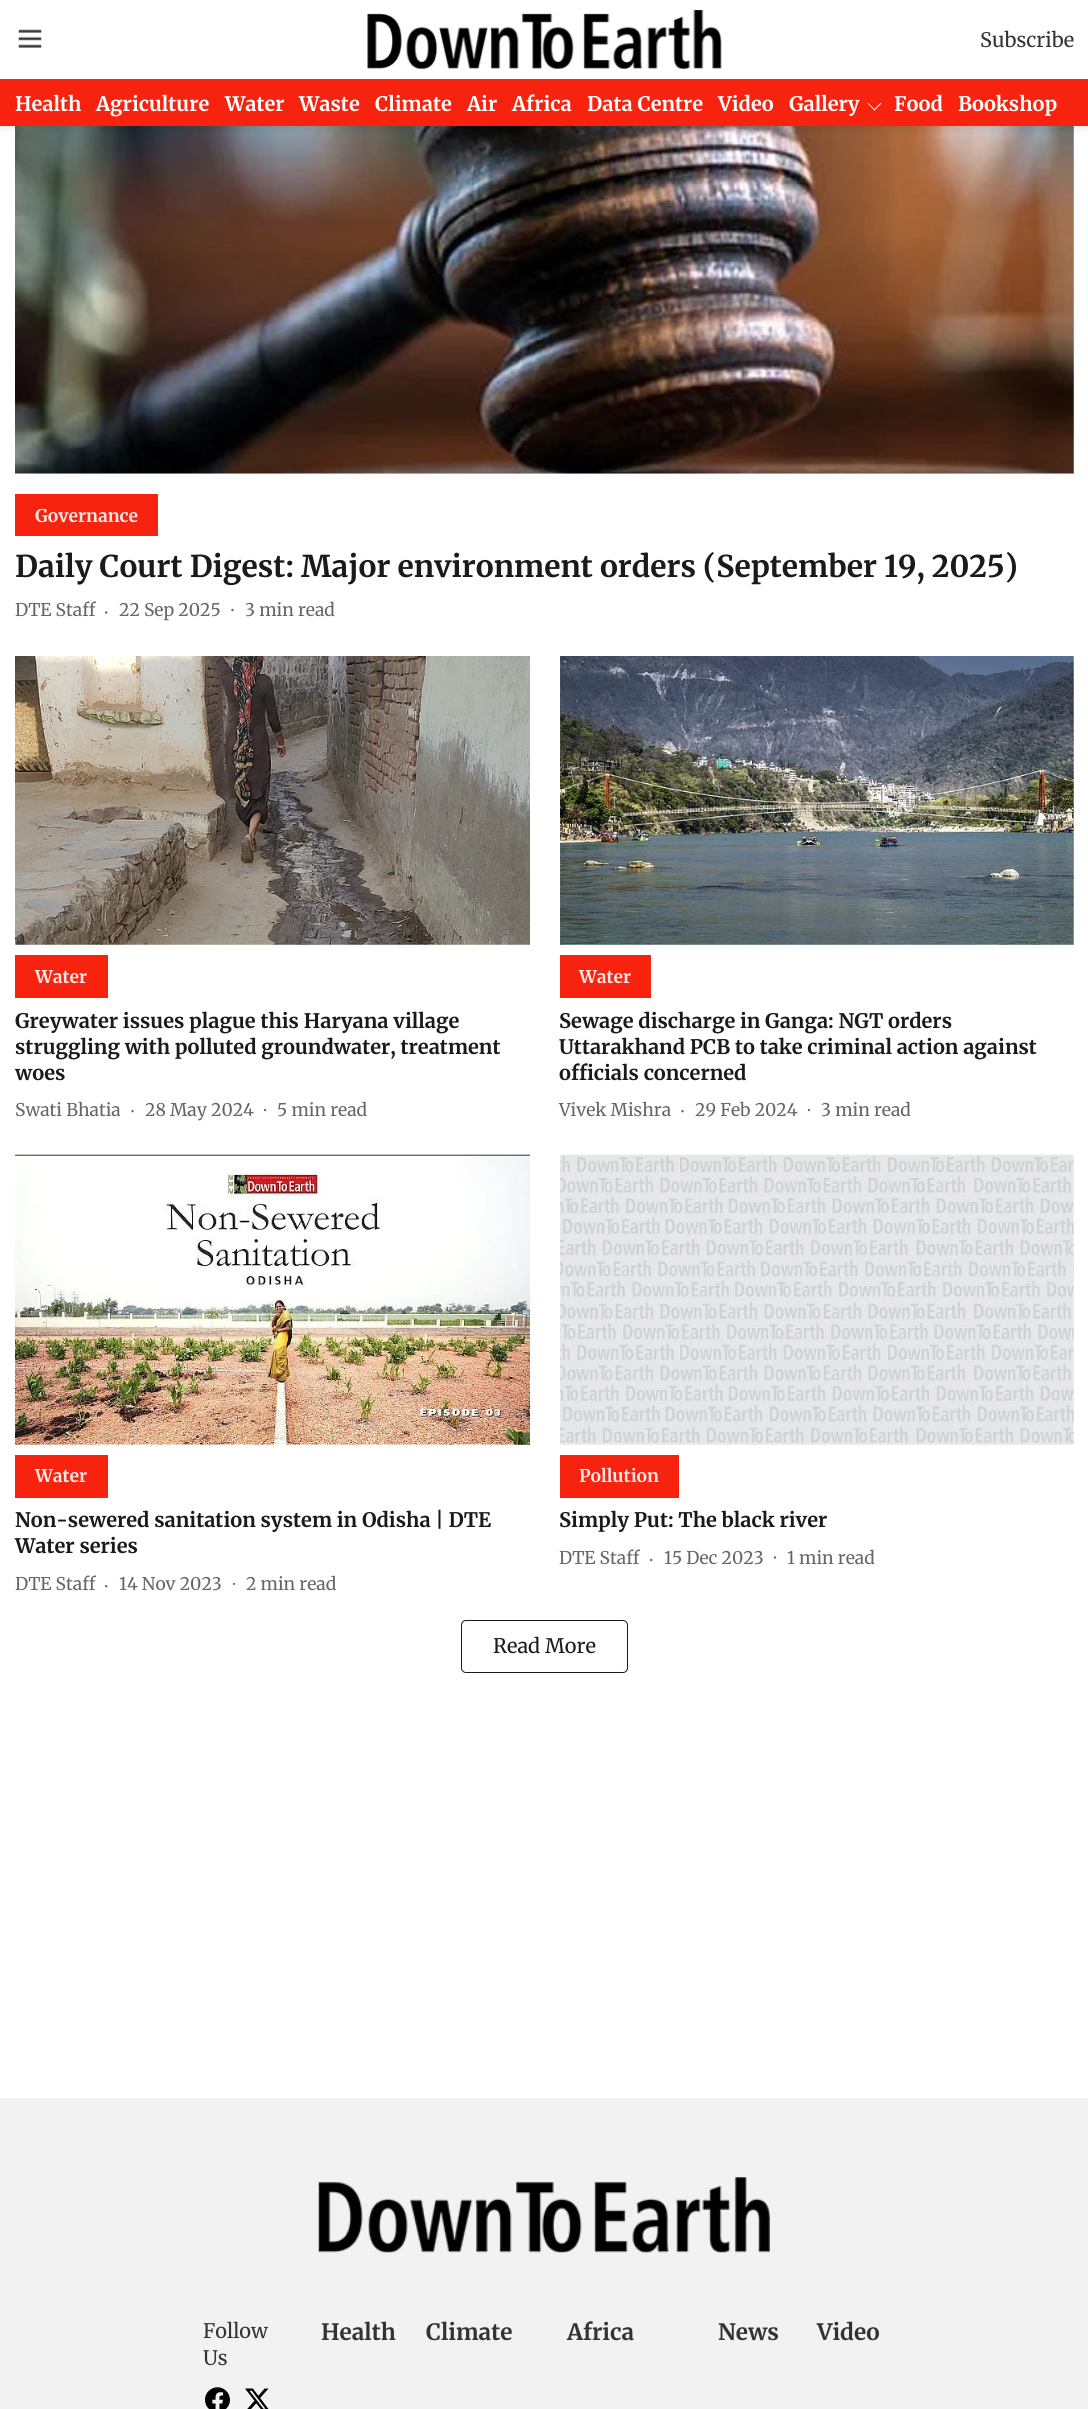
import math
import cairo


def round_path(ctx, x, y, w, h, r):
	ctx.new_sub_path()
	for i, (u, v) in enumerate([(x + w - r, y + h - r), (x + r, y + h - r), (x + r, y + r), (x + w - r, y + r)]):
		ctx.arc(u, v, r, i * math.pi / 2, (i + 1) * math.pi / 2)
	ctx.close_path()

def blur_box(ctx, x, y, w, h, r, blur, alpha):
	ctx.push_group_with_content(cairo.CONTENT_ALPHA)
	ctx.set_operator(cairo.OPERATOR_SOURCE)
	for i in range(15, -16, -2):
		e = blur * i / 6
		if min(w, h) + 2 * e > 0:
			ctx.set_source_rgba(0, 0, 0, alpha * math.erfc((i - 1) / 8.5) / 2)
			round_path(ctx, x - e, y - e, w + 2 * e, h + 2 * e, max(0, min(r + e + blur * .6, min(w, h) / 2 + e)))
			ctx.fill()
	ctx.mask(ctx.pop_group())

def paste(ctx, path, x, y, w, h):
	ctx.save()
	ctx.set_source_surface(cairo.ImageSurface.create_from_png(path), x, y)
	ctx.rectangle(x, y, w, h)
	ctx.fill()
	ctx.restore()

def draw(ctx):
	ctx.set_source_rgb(1, 1, 1)
	ctx.paint()
	ctx.set_source_rgb(0.941, 0.941, 0.941)
	ctx.rectangle(15, 126, 1059, 348)
	ctx.fill()
	paste(ctx, 'media/3.png', 15, 126, 1059, 348)
	ctx.set_source_rgb(0, 0, 0)
	blur_box(ctx, 0, 1, 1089, 127, 0, 4, 0.1)
	ctx.set_source_rgb(1, 1, 1)
	ctx.rectangle(0, 0, 1088, 79)
	ctx.fill()
	paste(ctx, 'media/1.png', 18, 29, 24, 19)
	paste(ctx, 'media/2.png', 367, 10, 355, 59)
	ctx.select_font_face('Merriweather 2 Light')
	ctx.set_font_size(20)
	ctx.set_source_rgb(0.2, 0.2, 0.2)
	ctx.move_to(980, 47)
	ctx.show_text('Subscribe')
	ctx.set_source_rgb(0.969, 0.137, 0.059)
	ctx.rectangle(0, 79, 1088, 47)
	ctx.fill()
	ctx.select_font_face('Merriweather Light')
	ctx.set_source_rgb(1, 1, 1)
	for x, y, s in [
		(15, 111, 'Health'),
		(96, 111, 'Agriculture'),
		(225, 111, 'Water'),
		(299, 111, 'Waste'),
		(375, 111, 'Climate'),
		(467, 111, 'Air'),
		(512, 111, 'Africa'),
		(587, 111, 'Data Centre'),
		(718, 111, 'Video'),
		(789, 111, 'Gallery'),
	]:
		ctx.move_to(x, y)
		ctx.show_text(s)
	ctx.new_path()
	ctx.move_to(880.5, 103)
	ctx.line_to(881.5, 103.5)
	ctx.line_to(874.5, 110.5)
	ctx.line_to(873.5, 110)
	ctx.close_path()
	ctx.fill()
	ctx.new_path()
	ctx.move_to(868, 103)
	ctx.line_to(875.5, 110)
	ctx.line_to(874.5, 110.5)
	ctx.line_to(867.5, 103.5)
	ctx.close_path()
	ctx.fill()
	ctx.move_to(894, 111)
	ctx.show_text('Food')
	ctx.move_to(958, 111)
	ctx.show_text('Bookshop')
	ctx.set_source_rgb(0.969, 0.137, 0.059)
	ctx.rectangle(15, 494, 143, 42)
	ctx.fill()
	ctx.set_font_size(17.5)
	ctx.set_source_rgb(0.996, 0.914, 0.906)
	ctx.move_to(35, 522)
	ctx.show_text('Governance')
	ctx.set_font_size(30)
	ctx.set_source_rgb(0.102, 0.102, 0.102)
	ctx.move_to(15, 577)
	ctx.show_text('Daily Court Digest: Major environment orders (September 19, 2025)')
	ctx.select_font_face('Merriweather 2 Light')
	ctx.set_font_size(17.5)
	ctx.set_source_rgb(0.4, 0.4, 0.4)
	ctx.move_to(15, 616)
	ctx.show_text('DTE Staff')
	ctx.new_path()
	ctx.arc(106.2, 612.5, 1.2, 0, 2 * math.pi)
	ctx.fill()
	ctx.move_to(119, 616)
	ctx.show_text('22 Sep 2025')
	ctx.new_path()
	ctx.arc(232.5, 610, 1.2, 0, 2 * math.pi)
	ctx.fill()
	ctx.move_to(245, 616)
	ctx.show_text('3 min read')
	paste(ctx, 'media/4.png', 15, 656, 515, 289)
	ctx.set_source_rgb(0.969, 0.137, 0.059)
	ctx.rectangle(15, 955, 93, 43)
	ctx.fill()
	ctx.select_font_face('Merriweather Light')
	ctx.set_source_rgb(0.996, 0.914, 0.906)
	ctx.move_to(35, 983)
	ctx.show_text('Water')
	ctx.set_font_size(20)
	ctx.set_source_rgb(0.102, 0.102, 0.102)
	for x, y, s in [
		(15, 1028, 'Greywater issues plague this Haryana village'),
		(15, 1054, 'struggling with polluted groundwater, treatment'),
		(15, 1080, 'woes'),
	]:
		ctx.move_to(x, y)
		ctx.show_text(s)
	ctx.select_font_face('Merriweather 2 Light')
	ctx.set_font_size(17.5)
	ctx.set_source_rgb(0.4, 0.4, 0.4)
	ctx.move_to(15, 1116)
	ctx.show_text('Swati Bhatia')
	ctx.new_path()
	ctx.arc(132.5, 1111.2, 1.2, 0, 2 * math.pi)
	ctx.fill()
	ctx.move_to(145, 1116)
	ctx.show_text('28 May 2024')
	ctx.save()
	ctx.rectangle(264, 1109, 4, 4)
	ctx.clip()
	ctx.arc(265, 1110, 1.2, 0, 2 * math.pi)
	ctx.fill()
	ctx.restore()
	ctx.move_to(277, 1116)
	ctx.show_text('5 min read')
	ctx.set_source_rgb(0.941, 0.941, 0.941)
	ctx.rectangle(560, 656, 514, 289)
	ctx.fill()
	paste(ctx, 'media/5.png', 560, 656, 514, 289)
	ctx.set_source_rgb(0.969, 0.137, 0.059)
	ctx.rectangle(560, 955, 91, 43)
	ctx.fill()
	ctx.select_font_face('Merriweather Light')
	ctx.set_source_rgb(0.996, 0.914, 0.906)
	ctx.move_to(579, 983)
	ctx.show_text('Water')
	ctx.set_font_size(20)
	ctx.set_source_rgb(0.102, 0.102, 0.102)
	for x, y, s in [
		(559, 1028, 'Sewage discharge in Ganga: NGT orders'),
		(559, 1054, 'Uttarakhand PCB to take criminal action against'),
		(559, 1080, 'officials concerned'),
	]:
		ctx.move_to(x, y)
		ctx.show_text(s)
	ctx.select_font_face('Merriweather 2 Light')
	ctx.set_font_size(17.5)
	ctx.set_source_rgb(0.4, 0.4, 0.4)
	ctx.move_to(559, 1116)
	ctx.show_text('Vivek Mishra')
	ctx.new_path()
	ctx.arc(682.5, 1111.2, 1.2, 0, 2 * math.pi)
	ctx.fill()
	ctx.move_to(695, 1116)
	ctx.show_text('29 Feb 2024')
	ctx.save()
	ctx.rectangle(808, 1109, 4, 4)
	ctx.clip()
	ctx.arc(808.8, 1110, 1.2, 0, 2 * math.pi)
	ctx.fill()
	ctx.restore()
	ctx.move_to(821, 1116)
	ctx.show_text('3 min read')
	paste(ctx, 'media/6.png', 15, 1154, 515, 291)
	ctx.set_source_rgb(0.969, 0.137, 0.059)
	ctx.rectangle(15, 1455, 93, 43)
	ctx.fill()
	ctx.select_font_face('Merriweather Light')
	ctx.set_source_rgb(0.996, 0.914, 0.906)
	ctx.move_to(35, 1482)
	ctx.show_text('Water')
	ctx.set_font_size(20)
	ctx.set_source_rgb(0.102, 0.102, 0.102)
	ctx.move_to(15, 1527)
	ctx.show_text('Non-sewered sanitation system in Odisha | DTE')
	ctx.move_to(15, 1553)
	ctx.show_text('Water series')
	ctx.select_font_face('Merriweather 2 Light')
	ctx.set_font_size(17.5)
	ctx.set_source_rgb(0.4, 0.4, 0.4)
	ctx.move_to(15, 1590)
	ctx.show_text('DTE Staff')
	ctx.new_path()
	ctx.arc(106.2, 1586.2, 1.2, 0, 2 * math.pi)
	ctx.fill()
	ctx.move_to(119, 1590)
	ctx.show_text('14 Nov 2023')
	ctx.save()
	ctx.rectangle(233, 1583, 4, 4)
	ctx.clip()
	ctx.arc(233.8, 1583.8, 1.2, 0, 2 * math.pi)
	ctx.fill()
	ctx.restore()
	ctx.move_to(246, 1590)
	ctx.show_text('2 min read')
	paste(ctx, 'media/7.png', 560, 1154, 514, 291)
	ctx.set_source_rgb(0.969, 0.137, 0.059)
	ctx.rectangle(560, 1455, 119, 43)
	ctx.fill()
	ctx.select_font_face('Merriweather Light')
	ctx.set_source_rgb(0.996, 0.914, 0.906)
	ctx.move_to(579, 1482)
	ctx.show_text('Pollution')
	ctx.set_font_size(20)
	ctx.set_source_rgb(0.102, 0.102, 0.102)
	ctx.move_to(559, 1527)
	ctx.show_text('Simply Put: The black river')
	ctx.select_font_face('Merriweather 2 Light')
	ctx.set_font_size(17.5)
	ctx.set_source_rgb(0.4, 0.4, 0.4)
	ctx.move_to(559, 1564)
	ctx.show_text('DTE Staff')
	ctx.new_path()
	ctx.arc(651.2, 1560, 1.2, 0, 2 * math.pi)
	ctx.fill()
	ctx.move_to(664, 1564)
	ctx.show_text('15 Dec 2023')
	ctx.new_path()
	ctx.arc(775, 1557.5, 1.2, 0, 2 * math.pi)
	ctx.fill()
	ctx.move_to(787, 1564)
	ctx.show_text('1 min read')
	round_path(ctx, 461.5, 1620.5, 166, 52, 4.5)
	ctx.set_source_rgb(0.102, 0.102, 0.102)
	ctx.set_line_width(1)
	ctx.stroke()
	ctx.set_font_size(20)
	ctx.move_to(493, 1653)
	ctx.show_text('Read More')
	ctx.set_source_rgb(0.949, 0.949, 0.949)
	ctx.rectangle(0, 2098, 1088, 311)
	ctx.fill()
	paste(ctx, 'media/8.png', 318, 2177, 452, 76)
	ctx.set_source_rgb(0.2, 0.2, 0.2)
	ctx.move_to(203, 2338)
	ctx.show_text('Follow')
	ctx.move_to(203, 2365)
	ctx.show_text('Us')
	paste(ctx, 'media/9.png', 205, 2387, 25, 22)
	paste(ctx, 'media/10.png', 245, 2388, 24, 21)
	ctx.select_font_face('Merriweather Light')
	ctx.set_font_size(22.5)
	for x, y, s in [
		(321, 2340, 'Health'),
		(426, 2340, 'Climate'),
		(567, 2340, 'Africa'),
		(718, 2340, 'News'),
		(817, 2340, 'Video'),
	]:
		ctx.move_to(x, y)
		ctx.show_text(s)


surface = cairo.ImageSurface(cairo.FORMAT_RGB24, 1088, 2409)
ctx = cairo.Context(surface)
options = cairo.FontOptions()
options.set_hint_metrics(cairo.HINT_METRICS_OFF)
options.set_hint_style(cairo.HINT_STYLE_NONE)
ctx.set_font_options(options)
ctx.set_miter_limit(4)
draw(ctx)
surface.write_to_png('image.png')
